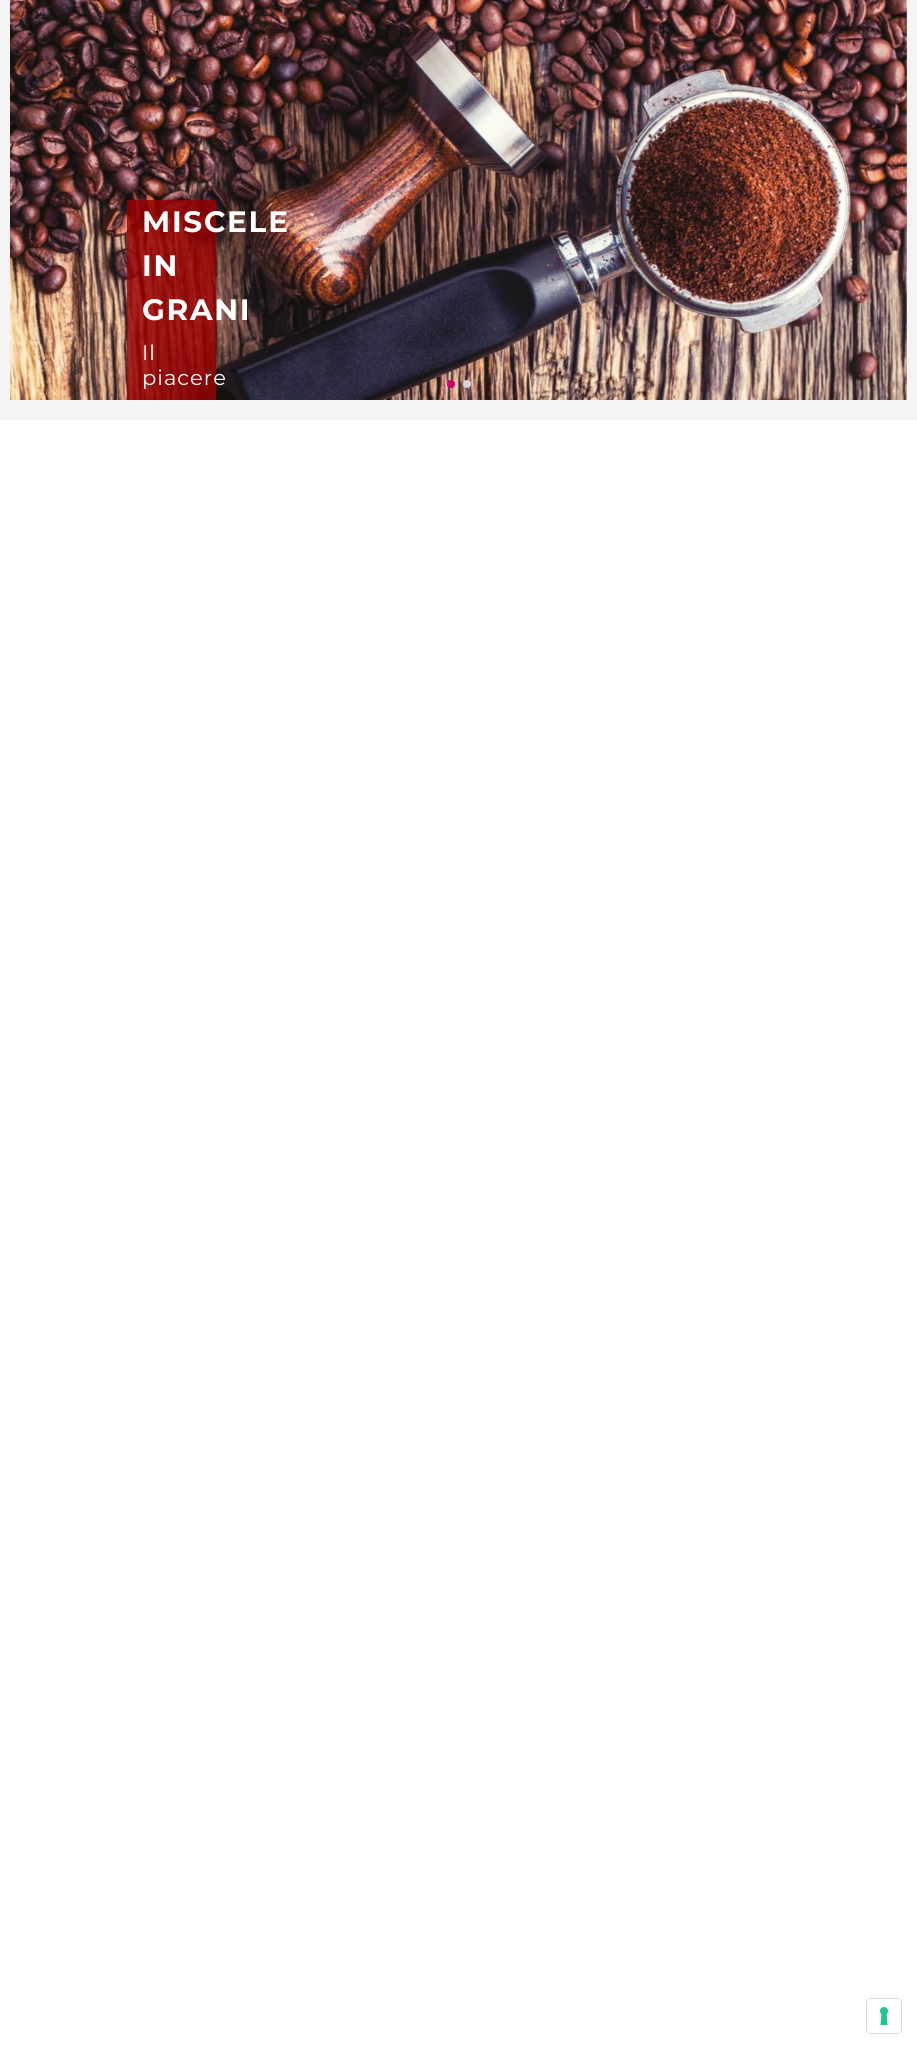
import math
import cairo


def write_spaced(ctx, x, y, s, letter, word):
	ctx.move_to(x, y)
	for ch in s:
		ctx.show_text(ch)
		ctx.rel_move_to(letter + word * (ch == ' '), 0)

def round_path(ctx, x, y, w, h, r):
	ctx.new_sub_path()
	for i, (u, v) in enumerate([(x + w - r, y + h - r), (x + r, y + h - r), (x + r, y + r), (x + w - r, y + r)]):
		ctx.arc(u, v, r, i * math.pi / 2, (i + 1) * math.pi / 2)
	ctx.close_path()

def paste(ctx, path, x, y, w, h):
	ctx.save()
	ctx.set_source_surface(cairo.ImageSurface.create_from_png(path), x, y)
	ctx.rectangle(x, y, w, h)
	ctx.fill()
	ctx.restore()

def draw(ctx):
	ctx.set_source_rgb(1, 1, 1)
	ctx.paint()
	ctx.set_source_rgb(0.957, 0.957, 0.957)
	ctx.rectangle(0, 0, 917, 420)
	ctx.fill()
	paste(ctx, 'media/1.png', 10, 0, 897, 400)
	ctx.set_source_rgba(0.6, 0, 0, 0.81)
	ctx.rectangle(127, 200, 89, 200)
	ctx.fill()
	ctx.select_font_face('Montserrat', cairo.FONT_SLANT_NORMAL, cairo.FONT_WEIGHT_BOLD)
	ctx.set_font_size(29.5)
	ctx.set_source_rgb(1, 1, 1)
	for x, y, s in [
		(142, 232, 'MISCELE'),
		(142, 276, 'IN'),
		(142, 320, 'GRANI'),
	]:
		write_spaced(ctx, x, y, s, 1.75, 0)
	ctx.select_font_face('Montserrat')
	ctx.set_font_size(21)
	write_spaced(ctx, 142, 360, 'Il', 1, 0)
	write_spaced(ctx, 142, 385, 'piacere', 1, 0)
	ctx.set_source_rgb(0.8, 0, 0.439)
	ctx.new_path()
	ctx.arc(451, 384, 4, 0, 2 * math.pi)
	ctx.fill()
	ctx.set_source_rgb(0.839, 0.839, 0.839)
	ctx.arc(467, 384, 4, 0, 2 * math.pi)
	ctx.fill()
	round_path(ctx, 866.5, 1998.5, 35, 35, 4.5)
	ctx.set_source_rgb(0.851, 0.851, 0.851)
	ctx.set_line_width(1)
	ctx.stroke()
	ctx.set_source_rgb(1, 1, 1)
	round_path(ctx, 867, 1999, 34, 34, 4)
	ctx.fill()
	paste(ctx, 'media/2.png', 880, 2007, 8, 18)


surface = cairo.ImageSurface(cairo.FORMAT_RGB24, 917, 2049)
ctx = cairo.Context(surface)
options = cairo.FontOptions()
options.set_hint_metrics(cairo.HINT_METRICS_OFF)
options.set_hint_style(cairo.HINT_STYLE_NONE)
ctx.set_font_options(options)
ctx.set_miter_limit(4)
draw(ctx)
surface.write_to_png('image.png')
